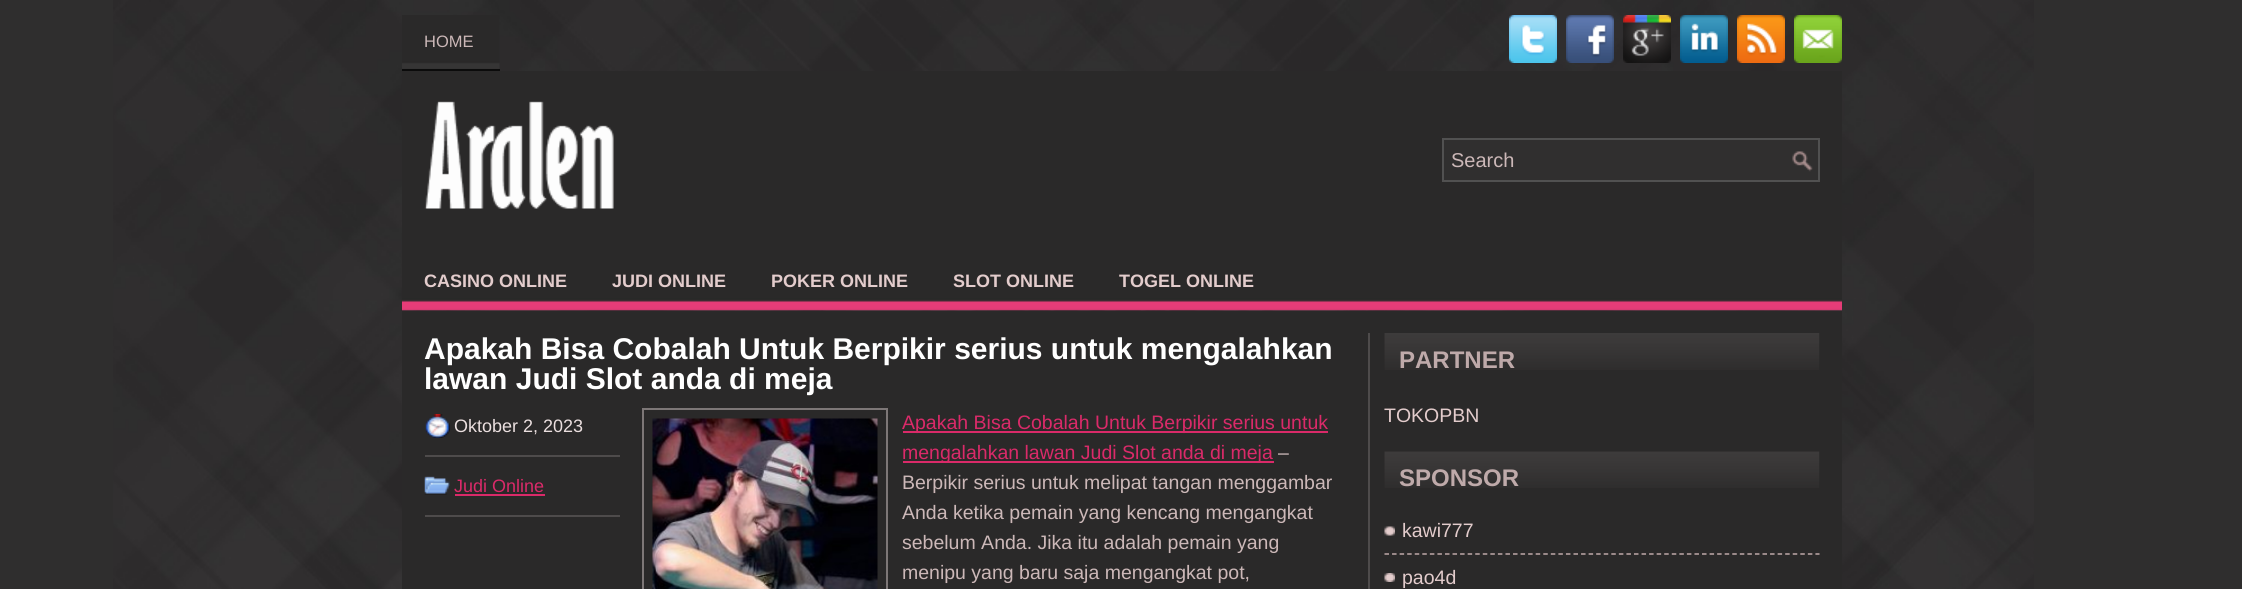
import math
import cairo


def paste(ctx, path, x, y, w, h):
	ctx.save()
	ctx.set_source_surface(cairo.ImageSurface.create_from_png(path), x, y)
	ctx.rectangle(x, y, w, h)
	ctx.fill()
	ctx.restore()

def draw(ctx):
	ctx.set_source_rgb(0.184, 0.18, 0.18)
	ctx.paint()
	paste(ctx, 'media/1.png', 113, 0, 1921, 589)
	paste(ctx, 'media/2.png', 402, 15, 98, 54)
	ctx.set_source_rgb(0.043, 0.043, 0.043)
	ctx.rectangle(402, 69, 98, 2)
	ctx.fill()
	ctx.select_font_face('Liberation Sans')
	ctx.set_font_size(16.5)
	ctx.set_source_rgb(0.8, 0.722, 0.722)
	ctx.move_to(424, 47)
	ctx.show_text('HOME')
	paste(ctx, 'media/3.png', 1509, 15, 48, 48)
	paste(ctx, 'media/4.png', 1566, 15, 48, 48)
	paste(ctx, 'media/5.png', 1623, 15, 48, 48)
	paste(ctx, 'media/6.png', 1680, 15, 48, 48)
	paste(ctx, 'media/7.png', 1737, 15, 48, 48)
	paste(ctx, 'media/8.png', 1794, 15, 48, 48)
	ctx.set_source_rgb(0.165, 0.161, 0.161)
	ctx.rectangle(402, 71, 1440, 180)
	ctx.fill()
	paste(ctx, 'media/9.png', 424, 101, 190, 108)
	ctx.set_source_rgb(0.188, 0.184, 0.184)
	ctx.rectangle(1444, 140, 374, 40)
	ctx.fill()
	paste(ctx, 'media/10.png', 1792, 151, 21, 21)
	ctx.rectangle(1443, 139, 376, 42)
	ctx.set_source_rgb(0.318, 0.318, 0.318)
	ctx.stroke()
	ctx.set_font_size(20)
	ctx.set_source_rgb(0.8, 0.722, 0.722)
	ctx.move_to(1451, 167)
	ctx.show_text('Search')
	paste(ctx, 'media/11.png', 402, 251, 1440, 60)
	ctx.select_font_face('Liberation Sans', cairo.FONT_SLANT_NORMAL, cairo.FONT_WEIGHT_BOLD)
	ctx.set_font_size(18)
	ctx.set_source_rgb(0.89, 0.8, 0.8)
	for x, y, s in [
		(424, 287, 'CASINO ONLINE'),
		(612, 287, 'JUDI ONLINE'),
		(771, 287, 'POKER ONLINE'),
		(953, 287, 'SLOT ONLINE'),
		(1119, 287, 'TOGEL ONLINE'),
	]:
		ctx.move_to(x, y)
		ctx.show_text(s)
	ctx.set_source_rgb(0.165, 0.161, 0.161)
	ctx.rectangle(402, 311, 1440, 278)
	ctx.fill()
	ctx.set_font_size(30)
	ctx.set_source_rgb(1, 1, 1)
	ctx.move_to(424, 359)
	ctx.show_text('Apakah Bisa Cobalah Untuk Berpikir serius untuk mengalahkan')
	ctx.move_to(424, 389)
	ctx.show_text('lawan Judi Slot anda di meja')
	paste(ctx, 'media/12.png', 425, 414, 25, 24)
	ctx.set_source_rgb(0.306, 0.294, 0.294)
	ctx.rectangle(425, 455, 195, 2)
	ctx.fill()
	ctx.select_font_face('Liberation Sans')
	ctx.set_font_size(18)
	ctx.set_source_rgb(0.918, 0.875, 0.875)
	ctx.move_to(454, 432)
	ctx.show_text('Oktober 2, 2023')
	paste(ctx, 'media/13.png', 424, 476, 26, 19)
	ctx.set_source_rgb(0.306, 0.294, 0.294)
	ctx.rectangle(425, 515, 195, 2)
	ctx.fill()
	ctx.set_source_rgb(0.855, 0.165, 0.412)
	ctx.move_to(454, 492)
	ctx.show_text('Judi Online')
	ctx.rectangle(455, 494, 90, 2)
	ctx.fill()
	ctx.rectangle(643, 409, 244, 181)
	ctx.set_source_rgb(0.49, 0.467, 0.467)
	ctx.stroke()
	paste(ctx, 'media/14.png', 652, 418, 226, 171)
	ctx.set_source_rgb(0.855, 0.165, 0.412)
	ctx.rectangle(903, 431, 425, 2)
	ctx.fill()
	ctx.set_font_size(19.5)
	ctx.move_to(902, 429)
	ctx.show_text('Apakah Bisa Cobalah Untuk Berpikir serius untuk')
	ctx.rectangle(903, 461, 371, 2)
	ctx.fill()
	ctx.move_to(902, 459)
	ctx.show_text('mengalahkan lawan Judi Slot anda di meja')
	ctx.set_source_rgb(0.8, 0.722, 0.722)
	for x, y, s in [
		(1278, 459, '–'),
		(902, 489, 'Berpikir serius untuk melipat tangan menggambar'),
		(902, 519, 'Anda ketika pemain yang kencang mengangkat'),
		(902, 549, 'sebelum Anda. Jika itu adalah pemain yang'),
		(902, 579, 'menipu yang baru saja mengangkat pot,'),
	]:
		ctx.move_to(x, y)
		ctx.show_text(s)
	ctx.set_source_rgb(0.306, 0.294, 0.294)
	ctx.rectangle(1368, 333, 2, 256)
	ctx.fill()
	paste(ctx, 'media/15.png', 1384, 333, 436, 37)
	ctx.select_font_face('Liberation Sans', cairo.FONT_SLANT_NORMAL, cairo.FONT_WEIGHT_BOLD)
	ctx.set_font_size(24)
	ctx.set_source_rgb(0.749, 0.667, 0.667)
	ctx.move_to(1399, 368)
	ctx.show_text('PARTNER')
	ctx.select_font_face('Liberation Sans')
	ctx.set_font_size(19.5)
	ctx.set_source_rgb(0.89, 0.8, 0.8)
	ctx.move_to(1384, 422)
	ctx.show_text('TOKOPBN')
	paste(ctx, 'media/16.png', 1384, 451, 436, 37)
	ctx.select_font_face('Liberation Sans', cairo.FONT_SLANT_NORMAL, cairo.FONT_WEIGHT_BOLD)
	ctx.set_font_size(24)
	ctx.set_source_rgb(0.749, 0.667, 0.667)
	ctx.move_to(1399, 486)
	ctx.show_text('SPONSOR')
	paste(ctx, 'media/17.png', 1384, 526, 11, 10)
	ctx.new_path()
	ctx.move_to(1384.5, 554)
	ctx.line_to(1819.5, 554)
	ctx.set_source_rgb(0.749, 0.663, 0.663)
	ctx.set_line_width(1.5)
	ctx.set_dash([4.5, 3.06])
	ctx.stroke()
	ctx.select_font_face('Liberation Sans')
	ctx.set_font_size(19.5)
	ctx.set_source_rgb(0.89, 0.8, 0.8)
	ctx.move_to(1402, 537)
	ctx.show_text('kawi777')
	paste(ctx, 'media/18.png', 1384, 573, 11, 9)
	ctx.move_to(1402, 584)
	ctx.show_text('pao4d')


surface = cairo.ImageSurface(cairo.FORMAT_RGB24, 2242, 589)
ctx = cairo.Context(surface)
options = cairo.FontOptions()
options.set_hint_metrics(cairo.HINT_METRICS_OFF)
options.set_hint_style(cairo.HINT_STYLE_NONE)
ctx.set_font_options(options)
ctx.set_miter_limit(4)
draw(ctx)
surface.write_to_png('image.png')
